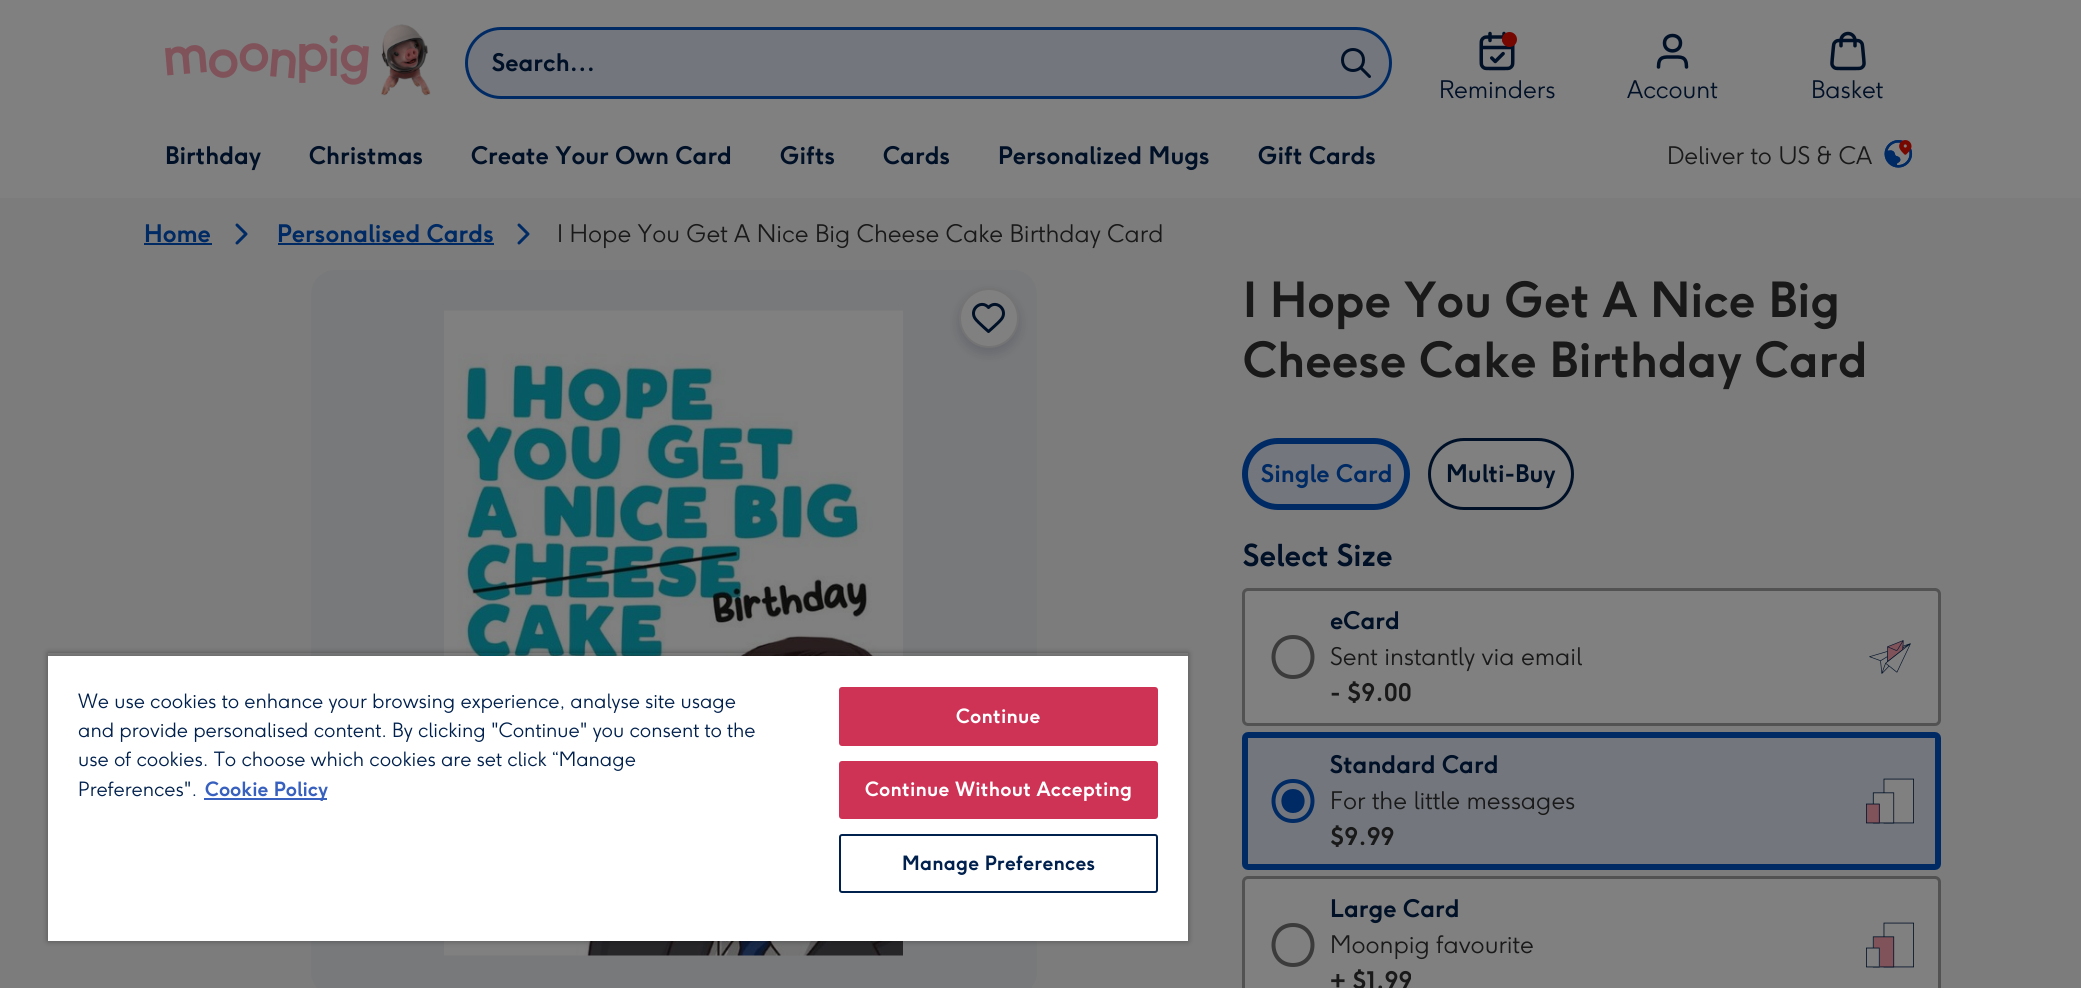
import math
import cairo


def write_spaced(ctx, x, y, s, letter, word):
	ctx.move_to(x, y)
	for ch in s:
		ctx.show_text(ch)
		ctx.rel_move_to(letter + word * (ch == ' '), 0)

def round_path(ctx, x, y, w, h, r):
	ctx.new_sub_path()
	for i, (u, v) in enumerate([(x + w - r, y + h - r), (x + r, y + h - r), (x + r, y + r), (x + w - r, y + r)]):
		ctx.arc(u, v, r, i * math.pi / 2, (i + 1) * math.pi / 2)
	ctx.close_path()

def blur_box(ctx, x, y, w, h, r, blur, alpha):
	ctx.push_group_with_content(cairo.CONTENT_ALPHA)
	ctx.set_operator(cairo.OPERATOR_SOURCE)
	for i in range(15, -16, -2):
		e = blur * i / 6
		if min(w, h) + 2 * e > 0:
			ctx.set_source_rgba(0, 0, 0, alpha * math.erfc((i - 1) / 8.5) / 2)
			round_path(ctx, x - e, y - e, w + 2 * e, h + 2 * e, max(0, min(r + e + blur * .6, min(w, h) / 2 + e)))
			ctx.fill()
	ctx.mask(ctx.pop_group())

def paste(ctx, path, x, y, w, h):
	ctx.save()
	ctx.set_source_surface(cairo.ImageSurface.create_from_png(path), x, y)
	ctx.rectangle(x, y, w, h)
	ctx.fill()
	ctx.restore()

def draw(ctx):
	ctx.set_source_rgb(0.486, 0.486, 0.49)
	ctx.paint()
	ctx.set_source_rgb(0.502, 0.502, 0.502)
	ctx.rectangle(0, 0, 2081, 198)
	ctx.fill()
	paste(ctx, 'media/1.png', 165, 35, 204, 50)
	paste(ctx, 'media/2.png', 381, 24, 50, 72)
	ctx.set_source_rgb(0.451, 0.467, 0.49)
	round_path(ctx, 466.5, 28.5, 924, 69, 34.5)
	ctx.fill_preserve()
	ctx.set_source_rgb(0, 0.165, 0.392)
	ctx.set_line_width(3)
	ctx.stroke()
	ctx.select_font_face('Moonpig', cairo.FONT_SLANT_NORMAL, cairo.FONT_WEIGHT_BOLD)
	ctx.set_font_size(24)
	ctx.set_source_rgb(0, 0.063, 0.153)
	ctx.move_to(492, 71)
	ctx.show_text('Search…')
	ctx.new_path()
	ctx.move_to(1369.5, 76.5)
	ctx.line_to(1360.5, 67.5)
	ctx.move_to(1363.5, 60)
	ctx.curve_to(1363.5, 74, 1342.5, 74, 1342.5, 60)
	ctx.curve_to(1342.5, 46, 1363.5, 46, 1363.5, 60)
	ctx.set_line_cap(cairo.LINE_CAP_ROUND)
	ctx.set_line_join(cairo.LINE_JOIN_ROUND)
	ctx.stroke()
	paste(ctx, 'media/3.png', 1479, 31, 36, 40)
	ctx.set_source_rgb(0.463, 0.031, 0)
	ctx.arc(1509.5, 39.5, 7.5, 0, 2 * math.pi)
	ctx.fill()
	ctx.select_font_face('Moonpig Light')
	ctx.set_source_rgb(0, 0.063, 0.153)
	ctx.move_to(1439, 98)
	ctx.show_text('Reminders')
	ctx.new_path()
	ctx.move_to(1686.5, 67)
	ctx.curve_to(1686.5, 56, 1681, 57, 1672.5, 57)
	ctx.curve_to(1664, 57, 1658.5, 56, 1658.5, 67)
	ctx.move_to(1680.5, 43)
	ctx.curve_to(1680.5, 53.5, 1664.5, 53.5, 1664.5, 43)
	ctx.curve_to(1664.5, 33, 1680.5, 33, 1680.5, 43)
	ctx.set_line_width(3.5)
	ctx.stroke()
	ctx.move_to(1627, 98)
	ctx.show_text('Account')
	paste(ctx, 'media/4.png', 1830, 31, 36, 40)
	ctx.move_to(1811, 98)
	ctx.show_text('Basket')
	ctx.select_font_face('Moonpig', cairo.FONT_SLANT_NORMAL, cairo.FONT_WEIGHT_BOLD)
	for x, y, s in [
		(165, 164, 'Birthday'),
		(309, 164, 'Christmas'),
		(471, 164, 'Create Your Own Card'),
		(780, 164, 'Gifts'),
		(883, 164, 'Cards'),
		(998, 164, 'Personalized Mugs'),
		(1258, 164, 'Gift Cards'),
	]:
		ctx.move_to(x, y)
		ctx.show_text(s)
	ctx.select_font_face('Moonpig Light')
	ctx.set_source_rgb(0.098, 0.098, 0.098)
	ctx.move_to(1667, 164)
	ctx.show_text('Deliver to US & CA')
	paste(ctx, 'media/5.png', 1884, 140, 29, 28)
	ctx.select_font_face('Moonpig', cairo.FONT_SLANT_NORMAL, cairo.FONT_WEIGHT_BOLD)
	ctx.set_source_rgb(0, 0.165, 0.392)
	ctx.move_to(144, 242)
	ctx.show_text('Home')
	ctx.rectangle(144, 243, 68, 2)
	ctx.fill()
	ctx.new_path()
	ctx.move_to(237, 243)
	ctx.line_to(246, 234)
	ctx.line_to(237, 225)
	ctx.set_line_width(3)
	ctx.stroke()
	ctx.move_to(277, 242)
	ctx.show_text('Personalised Cards')
	ctx.rectangle(278, 243, 216, 2)
	ctx.fill()
	ctx.new_path()
	ctx.move_to(519, 243)
	ctx.line_to(528, 234)
	ctx.line_to(519, 225)
	ctx.stroke()
	ctx.select_font_face('Moonpig Light')
	ctx.set_source_rgb(0.098, 0.098, 0.098)
	ctx.move_to(557, 242)
	ctx.show_text('I Hope You Get A Nice Big Cheese Cake Birthday Card')
	ctx.set_source_rgb(0.471, 0.475, 0.478)
	round_path(ctx, 311, 270, 726, 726, 24)
	ctx.fill()
	paste(ctx, 'media/6.png', 444, 310, 459, 646)
	ctx.set_source_rgb(0, 0.008, 0.153)
	blur_box(ctx, 959, 293, 60, 60, 30, 6, 0.15)
	ctx.set_source_rgb(0.502, 0.502, 0.502)
	ctx.arc(989, 318, 29, 0, 2 * math.pi)
	ctx.fill_preserve()
	ctx.set_source_rgb(0.455, 0.455, 0.455)
	ctx.set_line_width(2)
	ctx.set_line_cap(cairo.LINE_CAP_BUTT)
	ctx.set_line_join(cairo.LINE_JOIN_MITER)
	ctx.stroke()
	ctx.new_path()
	ctx.move_to(988.5, 307.5)
	ctx.curve_to(981.5, 299.5, 970, 308.5, 974.5, 317.5)
	ctx.curve_to(976.5, 321, 980.5, 324, 983.5, 327)
	ctx.line_to(988.5, 331.5)
	ctx.line_to(993.5, 327)
	ctx.curve_to(996.5, 324, 1000.5, 321, 1002.5, 317.5)
	ctx.curve_to(1007, 308.5, 995.5, 299.5, 988.5, 307.5)
	ctx.set_source_rgb(0, 0.063, 0.153)
	ctx.set_line_width(3)
	ctx.set_line_cap(cairo.LINE_CAP_ROUND)
	ctx.set_line_join(cairo.LINE_JOIN_ROUND)
	ctx.stroke()
	ctx.select_font_face('Moonpig', cairo.FONT_SLANT_NORMAL, cairo.FONT_WEIGHT_BOLD)
	ctx.set_font_size(48)
	ctx.set_source_rgb(0.098, 0.098, 0.098)
	ctx.move_to(1243, 317)
	ctx.show_text('I Hope You Get A Nice Big')
	ctx.move_to(1243, 377)
	ctx.show_text('Cheese Cake Birthday Card')
	ctx.set_source_rgb(0.451, 0.467, 0.49)
	round_path(ctx, 1245, 441, 162, 66, 33)
	ctx.fill_preserve()
	ctx.set_source_rgb(0, 0.165, 0.392)
	ctx.set_line_width(6)
	ctx.set_line_cap(cairo.LINE_CAP_BUTT)
	ctx.set_line_join(cairo.LINE_JOIN_MITER)
	ctx.stroke()
	ctx.set_font_size(24)
	ctx.move_to(1261, 482)
	ctx.show_text('Single Card')
	ctx.set_source_rgb(0.502, 0.502, 0.502)
	round_path(ctx, 1429.5, 439.5, 143, 69, 34.5)
	ctx.fill_preserve()
	ctx.set_source_rgb(0, 0.063, 0.153)
	ctx.set_line_width(3)
	ctx.stroke()
	ctx.move_to(1446, 482)
	ctx.show_text('Multi-Buy')
	ctx.set_font_size(30)
	ctx.move_to(1243, 566)
	ctx.show_text('Select Size')
	ctx.set_source_rgb(0.502, 0.502, 0.502)
	round_path(ctx, 1243.5, 589.5, 696, 135, 4.5)
	ctx.fill_preserve()
	ctx.set_source_rgb(0.322, 0.322, 0.322)
	ctx.stroke()
	ctx.new_path()
	ctx.move_to(1293, 677)
	ctx.curve_to(1319, 677, 1319, 637, 1293, 637)
	ctx.curve_to(1267, 637, 1267, 677, 1293, 677)
	ctx.set_source_rgb(0.231, 0.231, 0.231)
	ctx.set_line_width(4)
	ctx.set_line_cap(cairo.LINE_CAP_ROUND)
	ctx.set_line_join(cairo.LINE_JOIN_ROUND)
	ctx.stroke()
	ctx.set_font_size(24)
	ctx.set_source_rgb(0, 0.063, 0.153)
	ctx.move_to(1330, 629)
	ctx.show_text('eCard')
	ctx.select_font_face('Moonpig Light')
	ctx.set_source_rgb(0.098, 0.098, 0.098)
	ctx.move_to(1330, 665)
	ctx.show_text('Sent instantly via email')
	ctx.select_font_face('Moonpig', cairo.FONT_SLANT_NORMAL, cairo.FONT_WEIGHT_BOLD)
	ctx.move_to(1330, 701)
	ctx.show_text('- $9.00')
	paste(ctx, 'media/7.png', 1869, 640, 42, 34)
	ctx.set_source_rgb(0.451, 0.467, 0.49)
	round_path(ctx, 1245, 735, 693, 132, 3)
	ctx.fill_preserve()
	ctx.set_source_rgb(0, 0.165, 0.392)
	ctx.set_line_width(6)
	ctx.set_line_cap(cairo.LINE_CAP_BUTT)
	ctx.set_line_join(cairo.LINE_JOIN_MITER)
	ctx.stroke()
	ctx.new_path()
	ctx.move_to(1293, 821)
	ctx.curve_to(1319, 821, 1319, 781, 1293, 781)
	ctx.curve_to(1267, 781, 1267, 821, 1293, 821)
	ctx.set_line_width(4)
	ctx.set_line_cap(cairo.LINE_CAP_ROUND)
	ctx.set_line_join(cairo.LINE_JOIN_ROUND)
	ctx.stroke()
	ctx.new_path()
	ctx.move_to(1293, 813)
	ctx.curve_to(1308.5, 813, 1308.5, 789, 1293, 789)
	ctx.curve_to(1277.5, 789, 1277.5, 813, 1293, 813)
	ctx.fill()
	ctx.set_source_rgb(0, 0.063, 0.153)
	ctx.move_to(1330, 773)
	ctx.show_text('Standard Card')
	ctx.select_font_face('Moonpig Light')
	ctx.set_source_rgb(0.098, 0.098, 0.098)
	ctx.move_to(1330, 809)
	ctx.show_text('For the little messages')
	ctx.select_font_face('Moonpig', cairo.FONT_SLANT_NORMAL, cairo.FONT_WEIGHT_BOLD)
	ctx.move_to(1330, 845)
	ctx.show_text('$9.99')
	paste(ctx, 'media/8.png', 1866, 778, 48, 46)
	ctx.set_source_rgb(0.502, 0.502, 0.502)
	round_path(ctx, 1243.5, 877.5, 696, 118, 4.5)
	ctx.fill_preserve()
	ctx.set_source_rgb(0.322, 0.322, 0.322)
	ctx.set_line_width(3)
	ctx.set_line_cap(cairo.LINE_CAP_BUTT)
	ctx.set_line_join(cairo.LINE_JOIN_MITER)
	ctx.stroke()
	ctx.new_path()
	ctx.move_to(1293, 965)
	ctx.curve_to(1319, 965, 1319, 925, 1293, 925)
	ctx.curve_to(1267, 925, 1267, 965, 1293, 965)
	ctx.set_source_rgb(0.231, 0.231, 0.231)
	ctx.set_line_width(4)
	ctx.set_line_cap(cairo.LINE_CAP_ROUND)
	ctx.set_line_join(cairo.LINE_JOIN_ROUND)
	ctx.stroke()
	ctx.set_source_rgb(0, 0.063, 0.153)
	ctx.move_to(1330, 917)
	ctx.show_text('Large Card')
	ctx.select_font_face('Moonpig Light')
	ctx.set_source_rgb(0.098, 0.098, 0.098)
	ctx.move_to(1330, 953)
	ctx.show_text('Moonpig favourite')
	ctx.select_font_face('Moonpig', cairo.FONT_SLANT_NORMAL, cairo.FONT_WEIGHT_BOLD)
	ctx.move_to(1330, 989)
	ctx.show_text('+ $1.99')
	paste(ctx, 'media/9.png', 1866, 922, 48, 46)
	ctx.save()
	ctx.set_fill_rule(cairo.FILL_RULE_EVEN_ODD)
	ctx.new_path()
	ctx.move_to(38, 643)
	ctx.line_to(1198, 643)
	ctx.line_to(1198, 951)
	ctx.line_to(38, 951)
	ctx.close_path()
	ctx.move_to(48, 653)
	ctx.line_to(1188, 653)
	ctx.line_to(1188, 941)
	ctx.line_to(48, 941)
	ctx.close_path()
	ctx.clip()
	ctx.set_source_rgb(0, 0, 0)
	blur_box(ctx, 48, 653, 1140, 288, 0, 3, 0.35)
	ctx.restore()
	ctx.save()
	ctx.rectangle(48, 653, 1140, 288)
	ctx.clip()
	ctx.set_source_rgb(0, 0, 0)
	blur_box(ctx, 48, 656, 1140, 285, 0, 3, 0.2)
	ctx.restore()
	ctx.set_source_rgb(1, 1, 1)
	ctx.rectangle(48, 656, 1140, 285)
	ctx.fill()
	ctx.select_font_face('Moonpig Light')
	ctx.set_font_size(19.5)
	ctx.set_source_rgb(0, 0.125, 0.302)
	for x, y, s in [
		(78, 708, 'We use cookies to enhance your browsing experience, analyse site usage'),
		(78, 737, 'and provide personalised content. By clicking "Continue" you consent to the'),
		(78, 766, 'use of cookies. To choose which cookies are set click “Manage'),
		(78, 796, 'Preferences".'),
	]:
		ctx.move_to(x, y)
		ctx.show_text(s)
	ctx.set_source_rgb(0.22, 0.376, 0.745)
	ctx.rectangle(204, 798, 123, 2)
	ctx.fill()
	ctx.select_font_face('Moonpig', cairo.FONT_SLANT_NORMAL, cairo.FONT_WEIGHT_BOLD)
	ctx.move_to(205, 796)
	ctx.show_text('Cookie Policy')
	ctx.set_source_rgb(0.808, 0.2, 0.337)
	round_path(ctx, 840, 688, 317, 57, 2)
	ctx.fill_preserve()
	ctx.set_line_width(2)
	ctx.set_line_cap(cairo.LINE_CAP_BUTT)
	ctx.set_line_join(cairo.LINE_JOIN_MITER)
	ctx.stroke()
	ctx.set_source_rgb(1, 1, 1)
	write_spaced(ctx, 956, 723, 'Continue', 0.2, 0)
	ctx.set_source_rgb(0.808, 0.2, 0.337)
	round_path(ctx, 840, 762, 317, 56, 2)
	ctx.fill_preserve()
	ctx.stroke()
	ctx.set_source_rgb(1, 1, 1)
	write_spaced(ctx, 865, 796, 'Continue Without Accepting', 0.2, 0)
	round_path(ctx, 840, 835, 317, 57, 2)
	ctx.set_source_rgb(0, 0.125, 0.302)
	ctx.stroke()
	write_spaced(ctx, 902, 870, 'Manage Preferences', 0.2, 0)


surface = cairo.ImageSurface(cairo.FORMAT_RGB24, 2081, 988)
ctx = cairo.Context(surface)
options = cairo.FontOptions()
options.set_hint_metrics(cairo.HINT_METRICS_OFF)
options.set_hint_style(cairo.HINT_STYLE_NONE)
ctx.set_font_options(options)
ctx.set_miter_limit(4)
draw(ctx)
surface.write_to_png('image.png')
